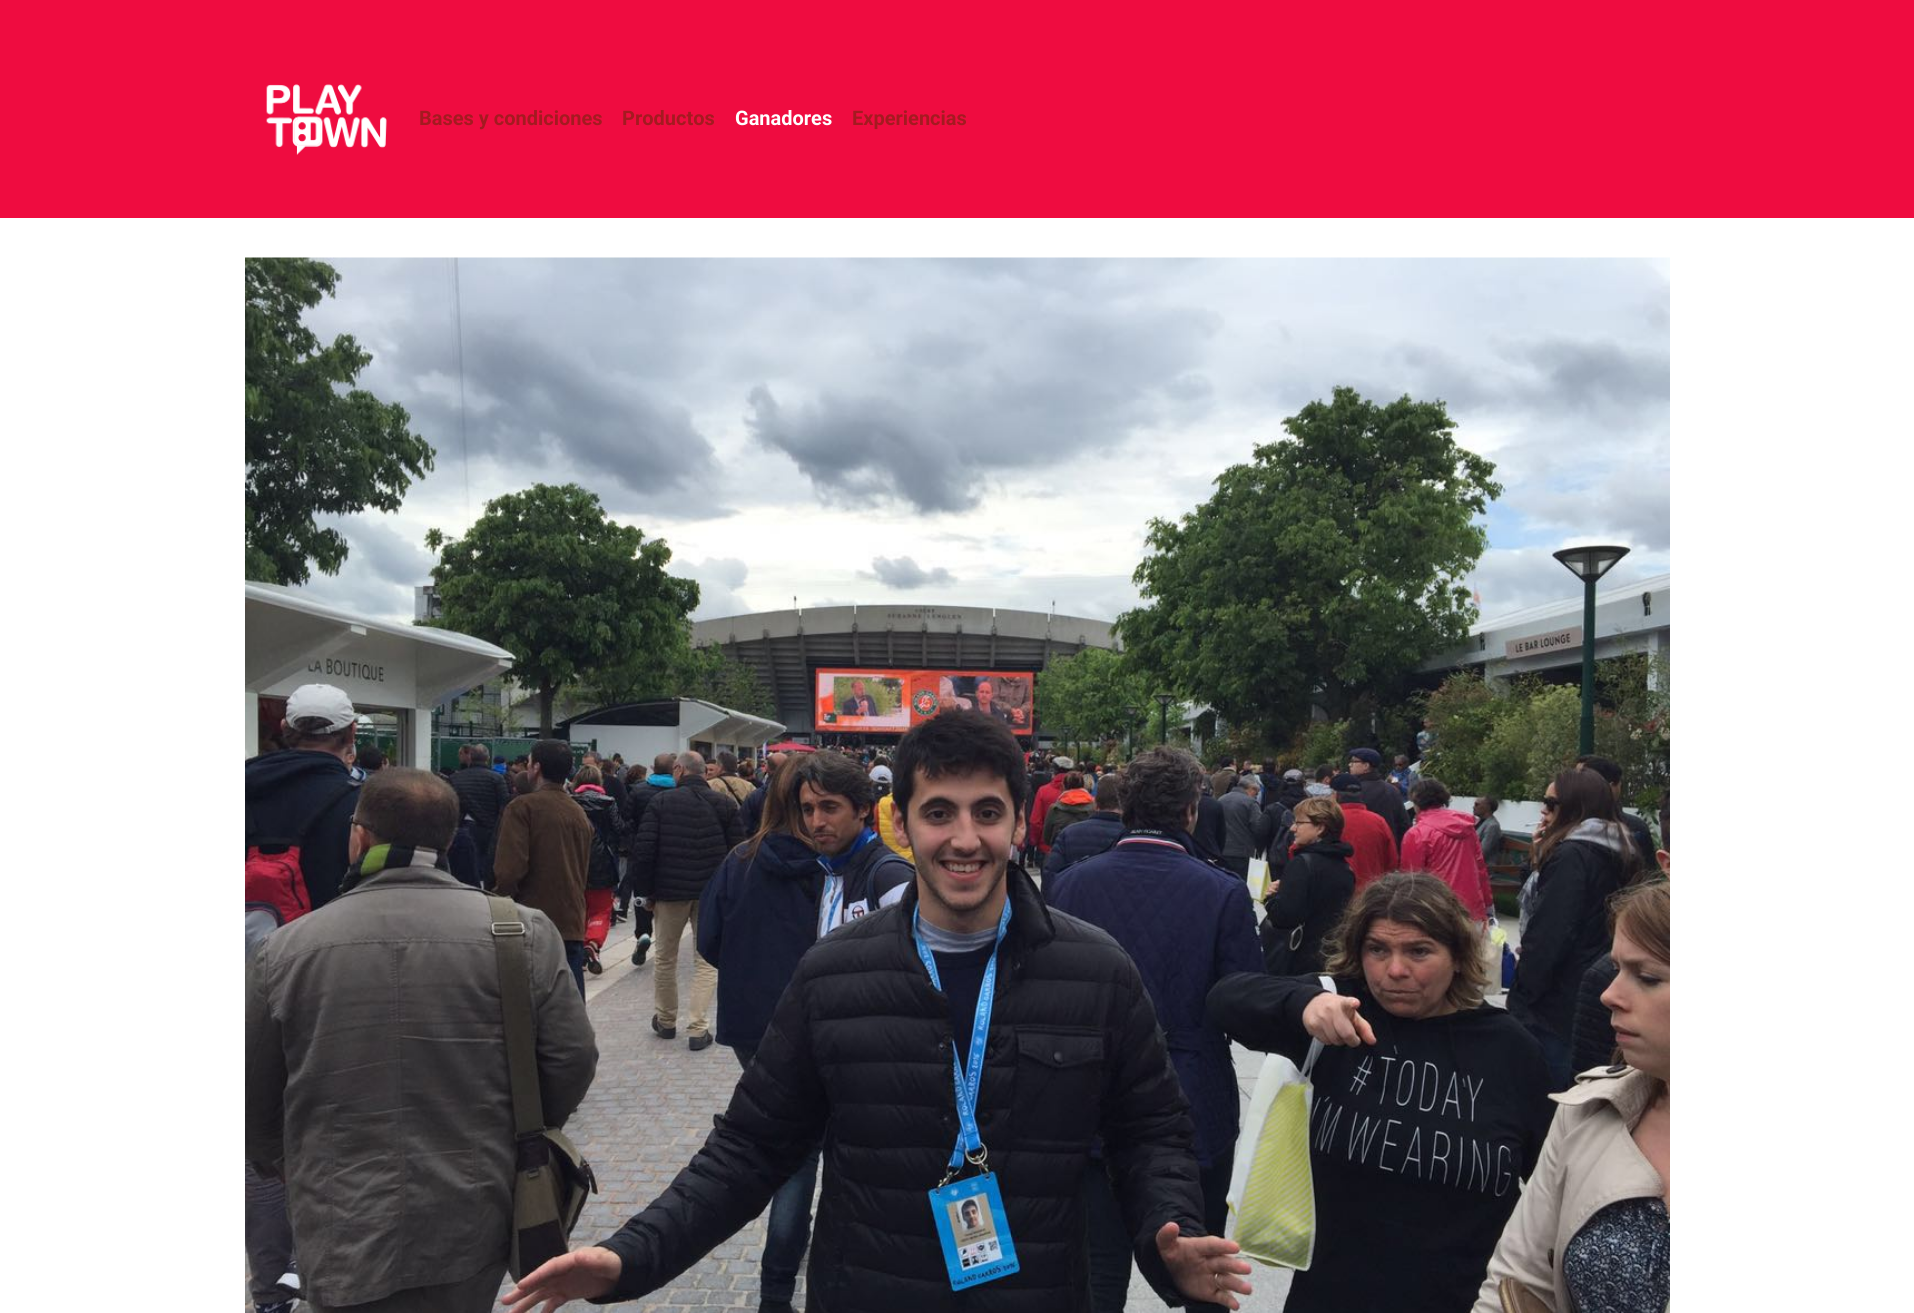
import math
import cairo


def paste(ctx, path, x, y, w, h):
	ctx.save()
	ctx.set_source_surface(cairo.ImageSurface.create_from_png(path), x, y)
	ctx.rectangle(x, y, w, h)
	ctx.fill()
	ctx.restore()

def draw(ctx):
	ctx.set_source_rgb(1, 1, 1)
	ctx.paint()
	ctx.set_source_rgb(0.937, 0.047, 0.251)
	ctx.rectangle(0, 0, 1914, 218)
	ctx.fill()
	paste(ctx, 'media/1.png', 266, 84, 121, 71)
	ctx.select_font_face('Roboto', cairo.FONT_SLANT_NORMAL, cairo.FONT_WEIGHT_BOLD)
	ctx.set_font_size(20)
	ctx.set_source_rgb(0.643, 0.102, 0.125)
	ctx.move_to(419, 125)
	ctx.show_text('Bases y condiciones')
	ctx.move_to(622, 125)
	ctx.show_text('Productos')
	ctx.set_source_rgb(1, 1, 1)
	ctx.move_to(735, 125)
	ctx.show_text('Ganadores')
	ctx.set_source_rgb(0.643, 0.102, 0.125)
	ctx.move_to(852, 125)
	ctx.show_text('Experiencias')
	paste(ctx, 'media/2.png', 245, 257, 1425, 1056)


surface = cairo.ImageSurface(cairo.FORMAT_RGB24, 1914, 1313)
ctx = cairo.Context(surface)
options = cairo.FontOptions()
options.set_hint_metrics(cairo.HINT_METRICS_OFF)
options.set_hint_style(cairo.HINT_STYLE_NONE)
ctx.set_font_options(options)
ctx.set_miter_limit(4)
draw(ctx)
surface.write_to_png('image.png')
